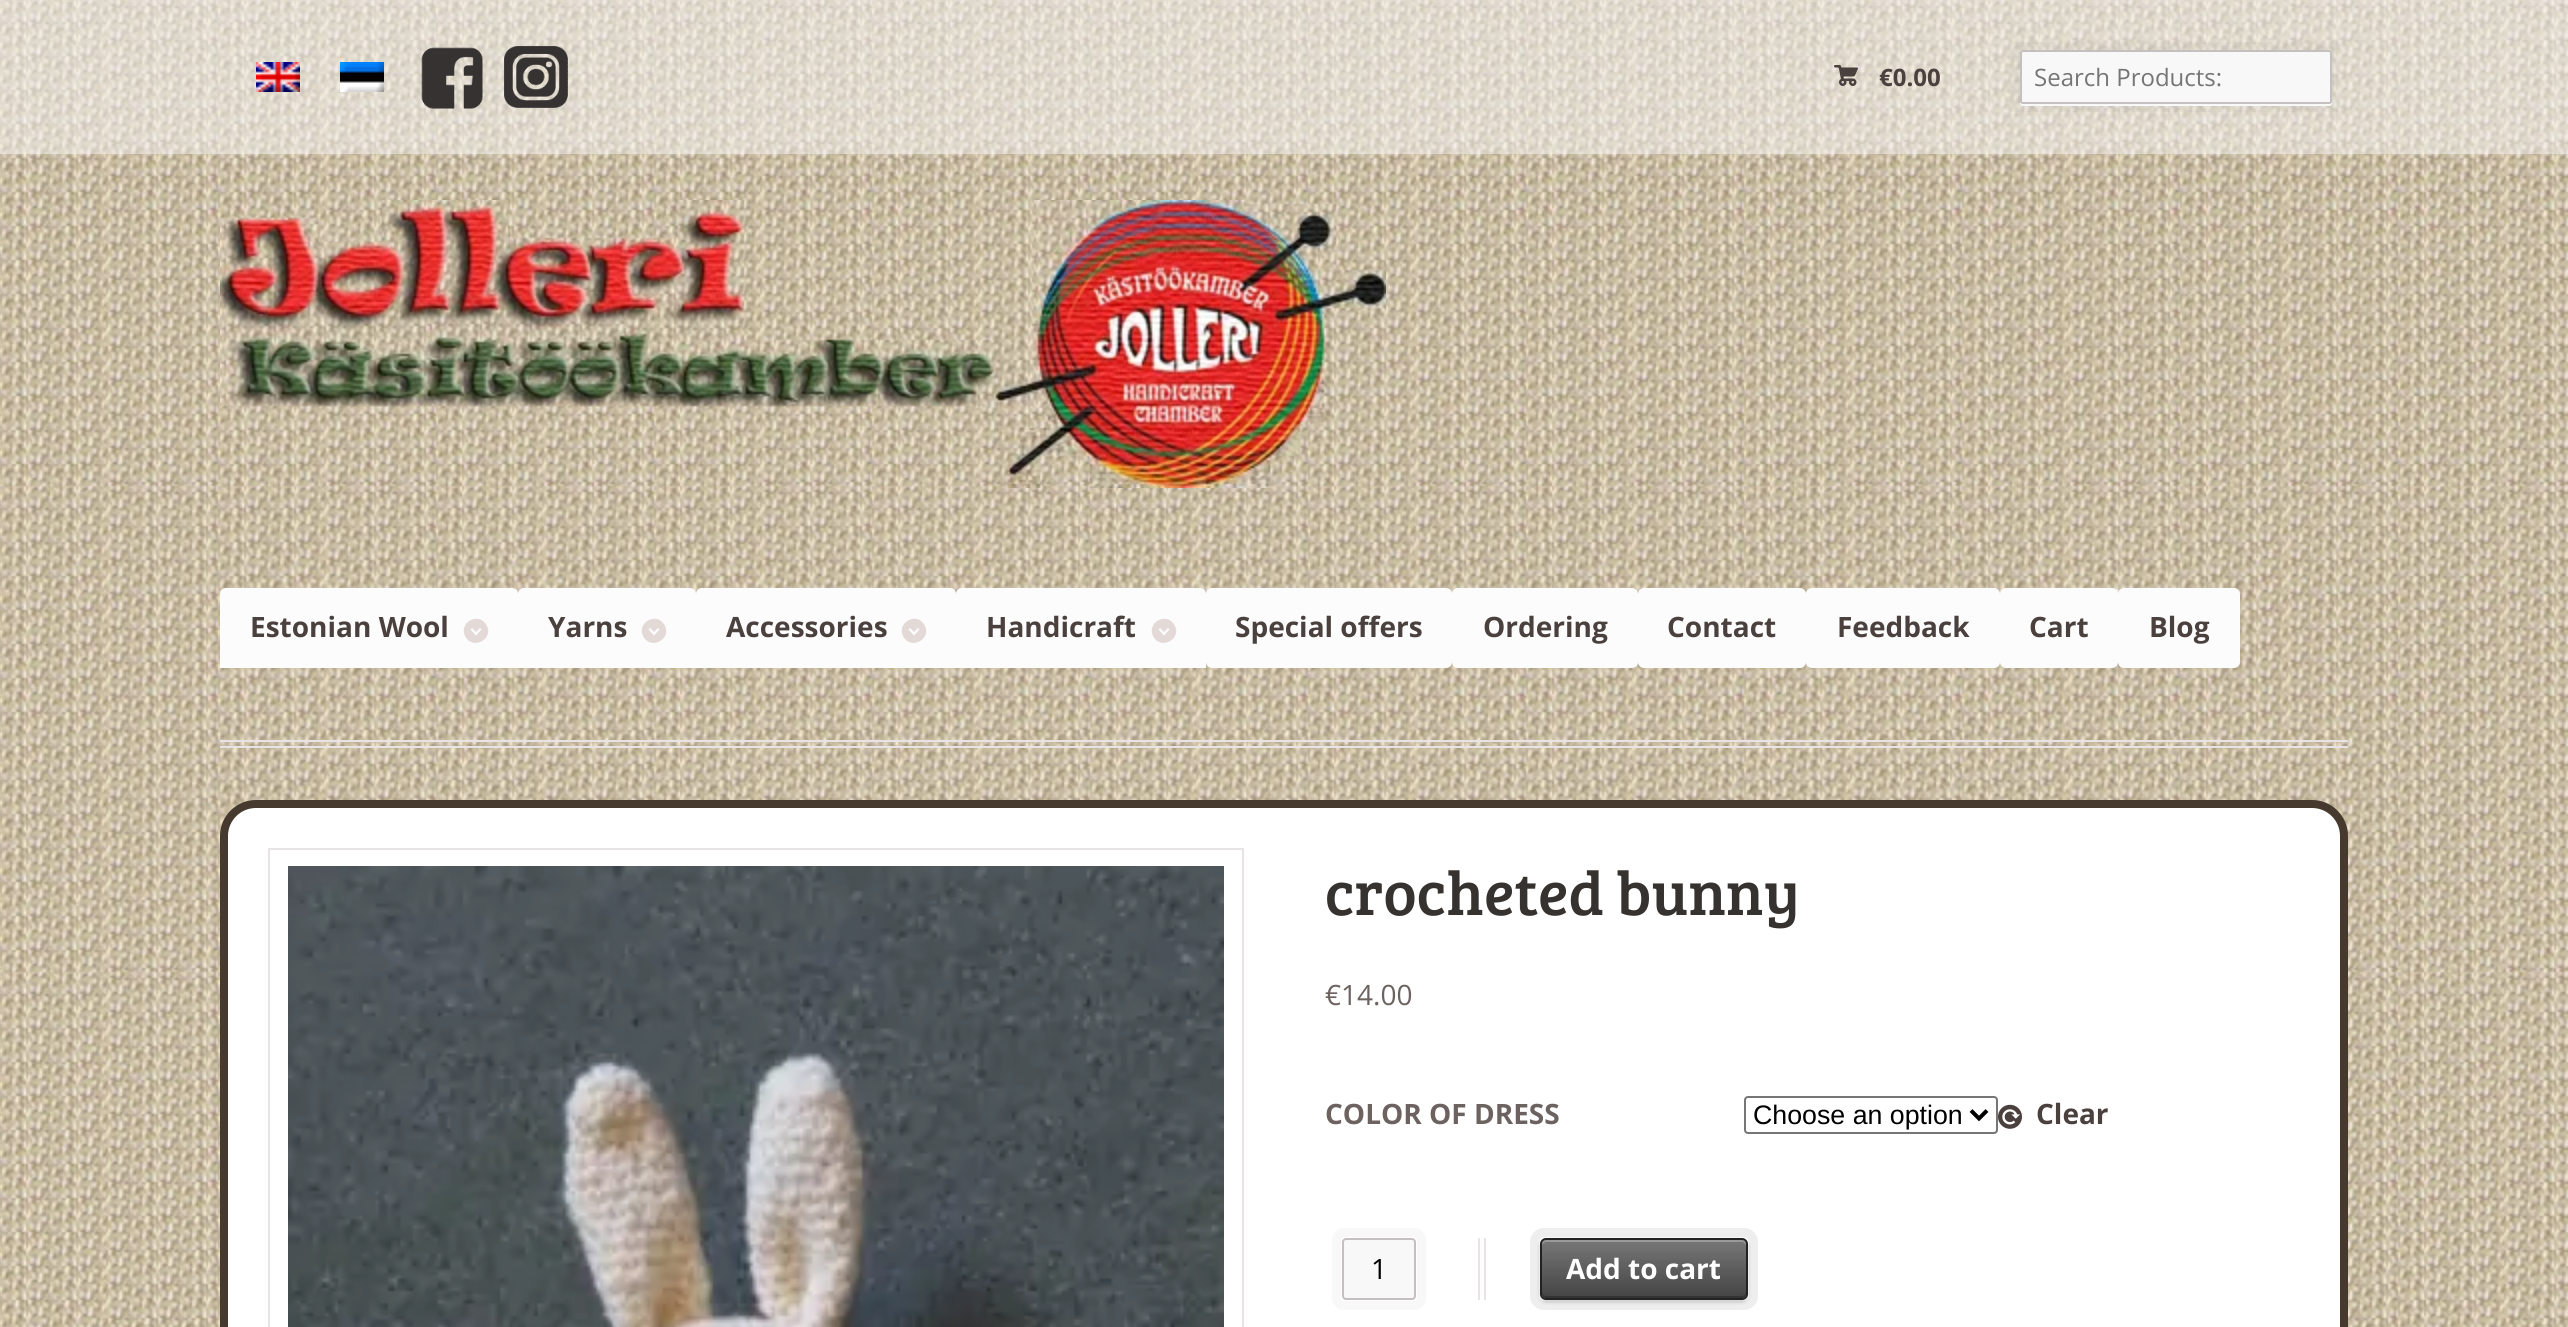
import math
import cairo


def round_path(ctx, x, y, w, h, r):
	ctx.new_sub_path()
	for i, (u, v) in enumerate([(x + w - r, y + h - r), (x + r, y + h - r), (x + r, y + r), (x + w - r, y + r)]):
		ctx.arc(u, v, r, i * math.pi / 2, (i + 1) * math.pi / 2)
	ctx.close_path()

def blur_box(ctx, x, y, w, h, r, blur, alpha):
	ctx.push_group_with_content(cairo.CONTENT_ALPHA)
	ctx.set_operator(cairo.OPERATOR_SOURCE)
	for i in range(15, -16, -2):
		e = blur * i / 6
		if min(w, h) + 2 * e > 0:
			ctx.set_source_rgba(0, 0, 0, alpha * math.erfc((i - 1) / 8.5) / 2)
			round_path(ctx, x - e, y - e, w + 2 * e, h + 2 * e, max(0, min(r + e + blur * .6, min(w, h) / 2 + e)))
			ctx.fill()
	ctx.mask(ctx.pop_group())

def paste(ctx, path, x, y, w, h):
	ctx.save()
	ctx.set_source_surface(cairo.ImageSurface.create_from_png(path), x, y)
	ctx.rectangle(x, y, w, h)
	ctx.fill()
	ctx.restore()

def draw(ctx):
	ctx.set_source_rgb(1, 1, 1)
	ctx.paint()
	paste(ctx, 'media/1.png', 0, 0, 2568, 1327)
	ctx.set_source_rgba(0.969, 0.969, 0.969, 0.5)
	ctx.rectangle(0, 0, 2568, 154)
	ctx.fill()
	paste(ctx, 'media/2.png', 256, 62, 44, 30)
	paste(ctx, 'media/3.png', 340, 62, 44, 30)
	paste(ctx, 'media/4.png', 421, 47, 62, 62)
	paste(ctx, 'media/5.png', 504, 46, 64, 62)
	ctx.select_font_face('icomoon')
	ctx.set_font_size(24)
	ctx.set_source_rgb(0.29, 0.255, 0.243)
	ctx.move_to(1834, 86)
	ctx.show_text('£')
	ctx.select_font_face('Open Sans', cairo.FONT_SLANT_NORMAL, cairo.FONT_WEIGHT_BOLD)
	ctx.move_to(1879, 86)
	ctx.show_text('€0.00')
	ctx.set_source_rgb(1, 1, 1)
	ctx.new_path()
	ctx.move_to(2020, 101)
	ctx.line_to(2020, 103)
	ctx.curve_to(2020, 105, 2021, 106, 2023, 106)
	ctx.line_to(2329, 106)
	ctx.curve_to(2331, 106, 2332, 105, 2332, 103)
	ctx.line_to(2332, 101)
	ctx.curve_to(2332, 103, 2331, 104, 2329, 104)
	ctx.line_to(2023, 104)
	ctx.curve_to(2021, 104, 2020, 103, 2020, 101)
	ctx.close_path()
	ctx.fill()
	ctx.rectangle(2016, 46, 320, 62)
	ctx.set_source_rgba(0, 0, 0, 0.03)
	ctx.set_line_width(8)
	ctx.stroke()
	ctx.set_source_rgb(0.969, 0.969, 0.969)
	round_path(ctx, 2021, 51, 310, 52, 2)
	ctx.fill_preserve()
	ctx.set_source_rgb(0.769, 0.753, 0.749)
	ctx.set_line_width(2)
	ctx.stroke()
	ctx.select_font_face('Open Sans')
	ctx.set_source_rgb(0.459, 0.459, 0.459)
	ctx.move_to(2034, 86)
	ctx.show_text('Search Products:')
	ctx.set_source_rgb(0.91, 0.894, 0.89)
	ctx.rectangle(220, 740, 2128, 2)
	ctx.fill()
	ctx.rectangle(220, 746, 2128, 2)
	ctx.fill()
	paste(ctx, 'media/6.png', 220, 200, 1166, 288)
	ctx.set_source_rgb(0.988, 0.988, 0.988)
	ctx.new_path()
	ctx.move_to(226, 589)
	ctx.line_to(512, 589)
	ctx.curve_to(515, 589, 517, 591, 517, 594)
	ctx.line_to(517, 667)
	ctx.line_to(221, 667)
	ctx.line_to(221, 594)
	ctx.curve_to(221, 591, 223, 589, 226, 589)
	ctx.close_path()
	ctx.fill_preserve()
	ctx.stroke()
	ctx.select_font_face('Open Sans', cairo.FONT_SLANT_NORMAL, cairo.FONT_WEIGHT_BOLD)
	ctx.set_font_size(28)
	ctx.set_source_rgb(0.29, 0.255, 0.243)
	ctx.move_to(250, 637)
	ctx.show_text('Estonian Wool')
	ctx.set_source_rgb(0.89, 0.855, 0.843)
	ctx.new_path()
	ctx.move_to(476, 635.5)
	ctx.line_to(481.5, 629.5)
	ctx.line_to(480, 628)
	ctx.line_to(476, 632)
	ctx.line_to(472, 628)
	ctx.line_to(470.5, 629.5)
	ctx.close_path()
	ctx.move_to(486.5, 625)
	ctx.curve_to(494.5, 638.5, 473.5, 650.5, 465.5, 637)
	ctx.curve_to(457.5, 623, 478.5, 611, 486.5, 625)
	ctx.close_path()
	ctx.fill()
	ctx.set_source_rgb(0.988, 0.988, 0.988)
	ctx.new_path()
	ctx.move_to(524, 589)
	ctx.line_to(690, 589)
	ctx.curve_to(693, 589, 695, 591, 695, 594)
	ctx.line_to(695, 667)
	ctx.line_to(519, 667)
	ctx.line_to(519, 594)
	ctx.curve_to(519, 591, 521, 589, 524, 589)
	ctx.close_path()
	ctx.fill_preserve()
	ctx.stroke()
	ctx.set_source_rgb(0.29, 0.255, 0.243)
	ctx.move_to(548, 637)
	ctx.show_text('Yarns')
	ctx.set_source_rgb(0.89, 0.855, 0.843)
	ctx.new_path()
	ctx.move_to(654, 635.5)
	ctx.line_to(659.5, 629.5)
	ctx.line_to(658, 628)
	ctx.line_to(654, 632)
	ctx.line_to(650, 628)
	ctx.line_to(648.5, 629.5)
	ctx.close_path()
	ctx.move_to(664.5, 625)
	ctx.curve_to(672.5, 638.5, 651.5, 650.5, 643.5, 637)
	ctx.curve_to(635.5, 623, 656.5, 611, 664.5, 625)
	ctx.close_path()
	ctx.fill()
	ctx.set_source_rgb(0.988, 0.988, 0.988)
	ctx.new_path()
	ctx.move_to(702, 589)
	ctx.line_to(950, 589)
	ctx.curve_to(953, 589, 955, 591, 955, 594)
	ctx.line_to(955, 667)
	ctx.line_to(697, 667)
	ctx.line_to(697, 594)
	ctx.curve_to(697, 591, 699, 589, 702, 589)
	ctx.close_path()
	ctx.fill_preserve()
	ctx.stroke()
	ctx.set_source_rgb(0.29, 0.255, 0.243)
	ctx.move_to(726, 637)
	ctx.show_text('Accessories')
	ctx.set_source_rgb(0.89, 0.855, 0.843)
	ctx.new_path()
	ctx.move_to(914, 635.5)
	ctx.line_to(919.5, 629.5)
	ctx.line_to(918, 628)
	ctx.line_to(914, 632)
	ctx.line_to(910, 628)
	ctx.line_to(908.5, 629.5)
	ctx.close_path()
	ctx.move_to(924.5, 625)
	ctx.curve_to(932.5, 638.5, 911.5, 650.5, 903.5, 637)
	ctx.curve_to(895.5, 623, 916.5, 611, 924.5, 625)
	ctx.close_path()
	ctx.fill()
	ctx.set_source_rgb(0.988, 0.988, 0.988)
	ctx.new_path()
	ctx.move_to(962, 589)
	ctx.line_to(1200, 589)
	ctx.curve_to(1203, 589, 1205, 591, 1205, 594)
	ctx.line_to(1205, 667)
	ctx.line_to(957, 667)
	ctx.line_to(957, 594)
	ctx.curve_to(957, 591, 959, 589, 962, 589)
	ctx.close_path()
	ctx.fill_preserve()
	ctx.stroke()
	ctx.set_source_rgb(0.29, 0.255, 0.243)
	ctx.move_to(986, 637)
	ctx.show_text('Handicraft')
	ctx.set_source_rgb(0.89, 0.855, 0.843)
	ctx.new_path()
	ctx.move_to(1164, 635.5)
	ctx.line_to(1169.5, 629.5)
	ctx.line_to(1168, 628)
	ctx.line_to(1164, 632)
	ctx.line_to(1160, 628)
	ctx.line_to(1158.5, 629.5)
	ctx.close_path()
	ctx.move_to(1174.5, 625)
	ctx.curve_to(1182.5, 638.5, 1161.5, 650.5, 1153.5, 637)
	ctx.curve_to(1145.5, 623, 1166.5, 611, 1174.5, 625)
	ctx.close_path()
	ctx.fill()
	ctx.set_source_rgb(0.988, 0.988, 0.988)
	round_path(ctx, 1207, 589, 244, 78, 5)
	ctx.fill_preserve()
	ctx.stroke()
	ctx.set_source_rgb(0.29, 0.255, 0.243)
	ctx.move_to(1235, 637)
	ctx.show_text('Special offers')
	ctx.set_source_rgb(0.988, 0.988, 0.988)
	round_path(ctx, 1453, 589, 184, 78, 5)
	ctx.fill_preserve()
	ctx.stroke()
	ctx.set_source_rgb(0.29, 0.255, 0.243)
	ctx.move_to(1483, 637)
	ctx.show_text('Ordering')
	ctx.set_source_rgb(0.988, 0.988, 0.988)
	round_path(ctx, 1639, 589, 166, 78, 5)
	ctx.fill_preserve()
	ctx.stroke()
	ctx.set_source_rgb(0.29, 0.255, 0.243)
	ctx.move_to(1667, 637)
	ctx.show_text('Contact')
	ctx.set_source_rgb(0.988, 0.988, 0.988)
	round_path(ctx, 1807, 589, 192, 78, 5)
	ctx.fill_preserve()
	ctx.stroke()
	ctx.set_source_rgb(0.29, 0.255, 0.243)
	ctx.move_to(1837, 637)
	ctx.show_text('Feedback')
	ctx.set_source_rgb(0.988, 0.988, 0.988)
	round_path(ctx, 2001, 589, 116, 78, 5)
	ctx.fill_preserve()
	ctx.stroke()
	ctx.set_source_rgb(0.29, 0.255, 0.243)
	ctx.move_to(2029, 637)
	ctx.show_text('Cart')
	ctx.set_source_rgb(0.988, 0.988, 0.988)
	round_path(ctx, 2119, 589, 120, 78, 5)
	ctx.fill_preserve()
	ctx.stroke()
	ctx.set_source_rgb(0.29, 0.255, 0.243)
	ctx.move_to(2149, 637)
	ctx.show_text('Blog')
	ctx.set_source_rgb(1, 1, 1)
	round_path(ctx, 224, 804, 2120, 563, 32)
	ctx.fill_preserve()
	ctx.set_source_rgb(0.275, 0.227, 0.18)
	ctx.set_line_width(8)
	ctx.stroke()
	ctx.rectangle(269, 849, 974, 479)
	ctx.set_source_rgb(0.91, 0.894, 0.89)
	ctx.set_line_width(2)
	ctx.stroke()
	paste(ctx, 'media/7.png', 288, 866, 936, 461)
	ctx.select_font_face('Bree Serif')
	ctx.set_font_size(62.75)
	ctx.set_source_rgb(0.212, 0.196, 0.188)
	ctx.move_to(1325, 915)
	ctx.show_text('crocheted bunny')
	ctx.select_font_face('Open Sans')
	ctx.set_font_size(28)
	ctx.set_source_rgb(0.424, 0.388, 0.376)
	ctx.move_to(1325, 1005)
	ctx.show_text('€14.00')
	ctx.select_font_face('Open Sans', cairo.FONT_SLANT_NORMAL, cairo.FONT_WEIGHT_BOLD)
	ctx.move_to(1325, 1124)
	ctx.show_text('COLOR OF DRESS')
	round_path(ctx, 1745, 1097, 252, 36, 3)
	ctx.set_source_rgb(0.463, 0.463, 0.463)
	ctx.stroke()
	ctx.new_path()
	ctx.move_to(1971, 1110.5)
	ctx.line_to(1979, 1118.5)
	ctx.line_to(1987, 1110.5)
	ctx.set_source_rgb(0, 0, 0)
	ctx.set_line_width(4)
	ctx.stroke()
	ctx.select_font_face('Liberation Sans')
	ctx.set_font_size(26.75)
	ctx.move_to(1753, 1124)
	ctx.show_text('Choose an option')
	paste(ctx, 'media/8.png', 1998, 1104, 24, 25)
	ctx.select_font_face('Open Sans', cairo.FONT_SLANT_NORMAL, cairo.FONT_WEIGHT_BOLD)
	ctx.set_font_size(28)
	ctx.set_source_rgb(0.29, 0.255, 0.243)
	ctx.move_to(2036, 1124)
	ctx.show_text('Clear')
	ctx.set_source_rgb(0.91, 0.894, 0.89)
	ctx.rectangle(1478, 1238, 2, 62)
	ctx.fill()
	ctx.rectangle(1484, 1238, 2, 62)
	ctx.fill()
	round_path(ctx, 1336.5, 1232.5, 85, 73, 7.5)
	ctx.set_source_rgb(0.969, 0.969, 0.969)
	ctx.set_line_width(9)
	ctx.stroke()
	round_path(ctx, 1343, 1239, 72, 60, 3)
	ctx.fill_preserve()
	ctx.set_source_rgb(0.769, 0.753, 0.749)
	ctx.set_line_width(2)
	ctx.stroke()
	ctx.select_font_face('Open Sans')
	ctx.set_source_rgb(0, 0, 0)
	ctx.move_to(1371, 1279)
	ctx.show_text('1')
	ctx.set_source_rgb(0, 0, 0)
	blur_box(ctx, 1540, 1240, 208, 62, 6, 2, 0.2)
	round_path(ctx, 1534.5, 1232.5, 219, 73, 9.5)
	ctx.set_source_rgba(0, 0, 0, 0.07)
	ctx.set_line_width(9)
	ctx.stroke()
	gradient = cairo.LinearGradient(1644, 1240, 1644, 1298)
	gradient.add_color_stop_rgba(0, 0.467, 0.467, 0.467, 1)
	gradient.add_color_stop_rgba(1, 0.267, 0.267, 0.267, 1)
	ctx.set_source(gradient)
	round_path(ctx, 1542, 1240, 204, 58, 4)
	ctx.fill()
	ctx.set_source_rgb(0.2, 0.2, 0.2)
	ctx.new_path()
	ctx.move_to(1542, 1292)
	ctx.line_to(1542, 1294)
	ctx.curve_to(1542, 1296, 1544, 1298, 1546, 1298)
	ctx.line_to(1742, 1298)
	ctx.curve_to(1744, 1298, 1746, 1296, 1746, 1294)
	ctx.line_to(1746, 1292)
	ctx.curve_to(1746, 1294, 1744, 1296, 1742, 1296)
	ctx.line_to(1546, 1296)
	ctx.curve_to(1544, 1296, 1542, 1294, 1542, 1292)
	ctx.close_path()
	ctx.fill()
	ctx.set_source_rgb(0.6, 0.6, 0.6)
	ctx.new_path()
	ctx.move_to(1546, 1242)
	ctx.line_to(1742, 1242)
	ctx.curve_to(1744, 1242, 1746, 1244, 1746, 1246)
	ctx.line_to(1746, 1244)
	ctx.curve_to(1746, 1242, 1744, 1240, 1742, 1240)
	ctx.line_to(1546, 1240)
	ctx.curve_to(1544, 1240, 1542, 1242, 1542, 1244)
	ctx.line_to(1542, 1246)
	ctx.curve_to(1542, 1244, 1544, 1242, 1546, 1242)
	ctx.close_path()
	ctx.fill()
	round_path(ctx, 1541, 1239, 206, 60, 5)
	ctx.set_source_rgb(0.133, 0.133, 0.133)
	ctx.set_line_width(2)
	ctx.stroke()
	ctx.select_font_face('Open Sans', cairo.FONT_SLANT_NORMAL, cairo.FONT_WEIGHT_BOLD)
	ctx.set_source_rgb(1, 1, 1)
	ctx.move_to(1566, 1279)
	ctx.show_text('Add to cart')


surface = cairo.ImageSurface(cairo.FORMAT_RGB24, 2568, 1327)
ctx = cairo.Context(surface)
options = cairo.FontOptions()
options.set_hint_metrics(cairo.HINT_METRICS_OFF)
options.set_hint_style(cairo.HINT_STYLE_NONE)
ctx.set_font_options(options)
ctx.set_miter_limit(4)
draw(ctx)
surface.write_to_png('image.png')
